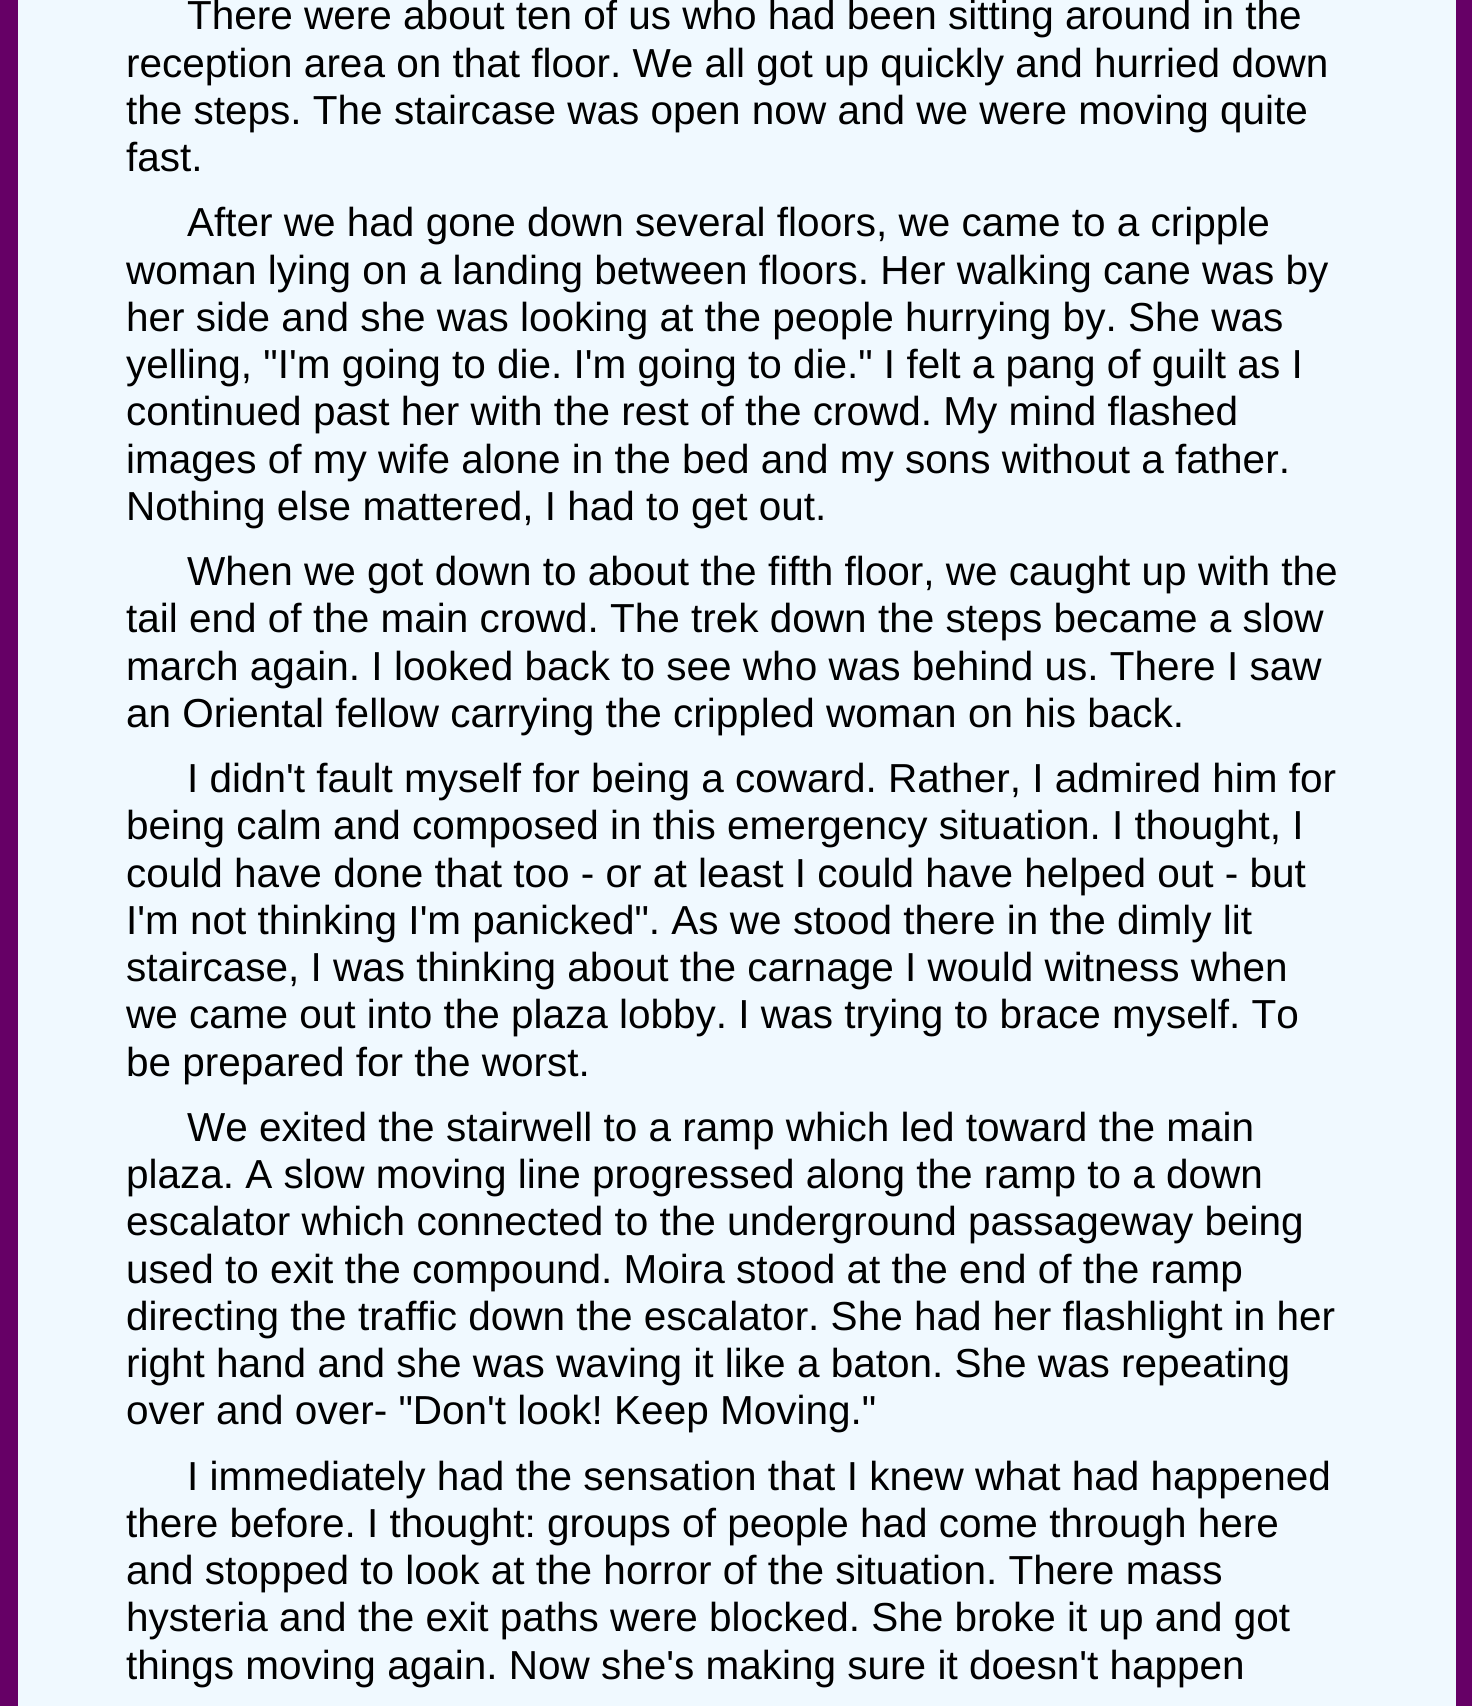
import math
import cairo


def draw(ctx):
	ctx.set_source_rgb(0.4, 0, 0.4)
	ctx.paint()
	ctx.set_source_rgb(0.941, 0.973, 1)
	ctx.rectangle(18, 0, 1438, 1706)
	ctx.fill()
	ctx.select_font_face('Liberation Sans')
	ctx.set_font_size(40.5)
	ctx.set_source_rgb(0, 0, 0)
	for x, y, s in [
		(187, 29, 'There were about ten of us who had been sitting around in the'),
		(126, 77, 'reception area on that floor. We all got up quickly and hurried down'),
		(126, 124, 'the steps. The staircase was open now and we were moving quite'),
		(126, 171, 'fast.'),
		(187, 236, 'After we had gone down several floors, we came to a cripple'),
		(126, 284, 'woman lying on a landing between floors. Her walking cane was by'),
		(126, 331, 'her side and she was looking at the people hurrying by. She was'),
		(126, 378, 'yelling, "I\'m going to die. I\'m going to die." I felt a pang of guilt as I'),
		(126, 425, 'continued past her with the rest of the crowd. My mind flashed'),
		(126, 473, 'images of my wife alone in the bed and my sons without a father.'),
		(126, 520, 'Nothing else mattered, I had to get out.'),
		(187, 585, 'When we got down to about the fifth floor, we caught up with the'),
		(126, 632, 'tail end of the main crowd. The trek down the steps became a slow'),
		(126, 680, 'march again. I looked back to see who was behind us. There I saw'),
		(126, 727, 'an Oriental fellow carrying the crippled woman on his back.'),
		(187, 792, 'I didn\'t fault myself for being a coward. Rather, I admired him for'),
		(126, 839, 'being calm and composed in this emergency situation. I thought, I'),
		(126, 887, 'could have done that too - or at least I could have helped out - but'),
		(126, 934, 'I\'m not thinking I\'m panicked". As we stood there in the dimly lit'),
		(126, 981, 'staircase, I was thinking about the carnage I would witness when'),
		(126, 1028, 'we came out into the plaza lobby. I was trying to brace myself. To'),
		(126, 1076, 'be prepared for the worst.'),
		(187, 1141, 'We exited the stairwell to a ramp which led toward the main'),
		(126, 1188, 'plaza. A slow moving line progressed along the ramp to a down'),
		(126, 1235, 'escalator which connected to the underground passageway being'),
		(126, 1283, 'used to exit the compound. Moira stood at the end of the ramp'),
		(126, 1330, 'directing the traffic down the escalator. She had her flashlight in her'),
		(126, 1377, 'right hand and she was waving it like a baton. She was repeating'),
		(126, 1424, 'over and over- "Don\'t look! Keep Moving."'),
		(187, 1490, 'I immediately had the sensation that I knew what had happened'),
		(126, 1537, 'there before. I thought: groups of people had come through here'),
		(126, 1584, 'and stopped to look at the horror of the situation. There mass'),
		(126, 1631, 'hysteria and the exit paths were blocked. She broke it up and got'),
		(126, 1679, 'things moving again. Now she\'s making sure it doesn\'t happen'),
	]:
		ctx.move_to(x, y)
		ctx.show_text(s)


surface = cairo.ImageSurface(cairo.FORMAT_RGB24, 1472, 1706)
ctx = cairo.Context(surface)
options = cairo.FontOptions()
options.set_hint_metrics(cairo.HINT_METRICS_OFF)
options.set_hint_style(cairo.HINT_STYLE_NONE)
ctx.set_font_options(options)
ctx.set_miter_limit(4)
draw(ctx)
surface.write_to_png('image.png')
